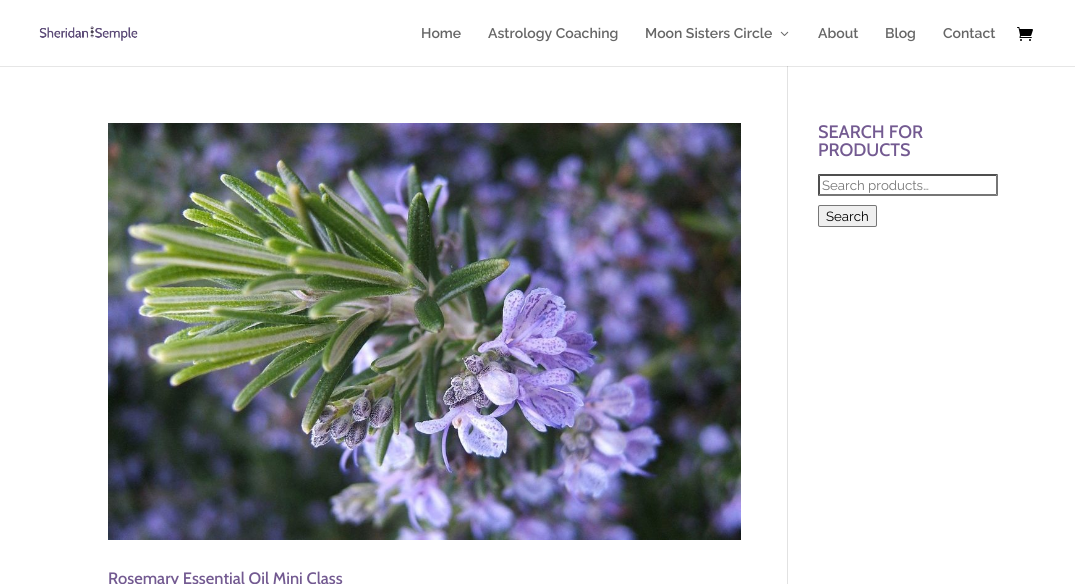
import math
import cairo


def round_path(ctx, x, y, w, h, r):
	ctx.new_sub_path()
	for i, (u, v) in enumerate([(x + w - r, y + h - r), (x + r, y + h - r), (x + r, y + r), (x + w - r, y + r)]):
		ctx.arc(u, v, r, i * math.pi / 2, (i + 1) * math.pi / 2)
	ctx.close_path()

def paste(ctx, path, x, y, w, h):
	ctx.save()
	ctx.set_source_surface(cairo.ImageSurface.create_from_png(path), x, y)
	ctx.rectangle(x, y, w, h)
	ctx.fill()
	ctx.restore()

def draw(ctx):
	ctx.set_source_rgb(1, 1, 1)
	ctx.paint()
	ctx.set_source_rgb(0.902, 0.902, 0.902)
	ctx.rectangle(0, 66, 1075, 1)
	ctx.fill()
	ctx.set_source_rgb(0.886, 0.886, 0.886)
	ctx.rectangle(787, 65, 1, 519)
	ctx.fill()
	ctx.set_source_rgb(1, 1, 1)
	ctx.rectangle(787, 65, 1, 1)
	ctx.fill()
	paste(ctx, 'media/1.png', 39, 26, 99, 15)
	ctx.select_font_face('Raleway SemiBold')
	ctx.set_font_size(14)
	ctx.set_source_rgb(0.4, 0.4, 0.4)
	for x, y, s in [
		(421, 38, 'Home'),
		(488, 38, 'Astrology Coaching'),
		(645, 38, 'Moon Sisters Circle'),
	]:
		ctx.move_to(x, y)
		ctx.show_text(s)
	paste(ctx, 'media/2.png', 780, 31, 9, 5)
	for x, y, s in [
		(818, 38, 'About'),
		(885, 38, 'Blog'),
		(943, 38, 'Contact'),
	]:
		ctx.move_to(x, y)
		ctx.show_text(s)
	paste(ctx, 'media/3.png', 1017, 27, 16, 14)
	ctx.set_source_rgb(0.796, 0.796, 0.796)
	ctx.rectangle(787, 66, 1, 1)
	ctx.fill()
	ctx.select_font_face('Cabin Medium')
	ctx.set_font_size(18)
	ctx.set_source_rgb(0.451, 0.353, 0.569)
	ctx.move_to(818, 138)
	ctx.show_text('SEARCH FOR')
	ctx.move_to(818, 156)
	ctx.show_text('PRODUCTS')
	ctx.set_source_rgb(0.31, 0.31, 0.31)
	ctx.new_path()
	ctx.move_to(818, 174)
	ctx.line_to(998, 174)
	ctx.line_to(996, 176)
	ctx.line_to(820, 176)
	ctx.close_path()
	ctx.fill()
	ctx.set_source_rgb(0.463, 0.463, 0.463)
	ctx.new_path()
	ctx.move_to(998, 174)
	ctx.line_to(998, 196)
	ctx.line_to(996, 194)
	ctx.line_to(996, 176)
	ctx.close_path()
	ctx.fill()
	ctx.new_path()
	ctx.move_to(998, 196)
	ctx.line_to(818, 196)
	ctx.line_to(820, 194)
	ctx.line_to(996, 194)
	ctx.close_path()
	ctx.fill()
	ctx.set_source_rgb(0.31, 0.31, 0.31)
	ctx.new_path()
	ctx.move_to(818, 196)
	ctx.line_to(818, 174)
	ctx.line_to(820, 176)
	ctx.line_to(820, 194)
	ctx.close_path()
	ctx.fill()
	ctx.select_font_face('Raleway')
	ctx.set_font_size(13.25)
	ctx.set_source_rgb(0.459, 0.459, 0.459)
	ctx.move_to(822, 190)
	ctx.show_text('Search products…')
	ctx.set_source_rgb(0.937, 0.937, 0.937)
	round_path(ctx, 818.5, 205.5, 58, 21, 1.5)
	ctx.fill_preserve()
	ctx.set_source_rgb(0.463, 0.463, 0.463)
	ctx.set_line_width(1)
	ctx.stroke()
	ctx.set_source_rgb(0, 0, 0)
	ctx.move_to(826, 221)
	ctx.show_text('Search')
	paste(ctx, 'media/4.png', 108, 123, 633, 417)
	ctx.select_font_face('Cabin Medium')
	ctx.set_font_size(16.5)
	ctx.set_source_rgb(0.451, 0.353, 0.569)
	ctx.move_to(108, 584)
	ctx.show_text('Rosemary Essential Oil Mini Class')


surface = cairo.ImageSurface(cairo.FORMAT_RGB24, 1075, 584)
ctx = cairo.Context(surface)
options = cairo.FontOptions()
options.set_hint_metrics(cairo.HINT_METRICS_OFF)
options.set_hint_style(cairo.HINT_STYLE_NONE)
ctx.set_font_options(options)
ctx.set_miter_limit(4)
draw(ctx)
surface.write_to_png('image.png')
